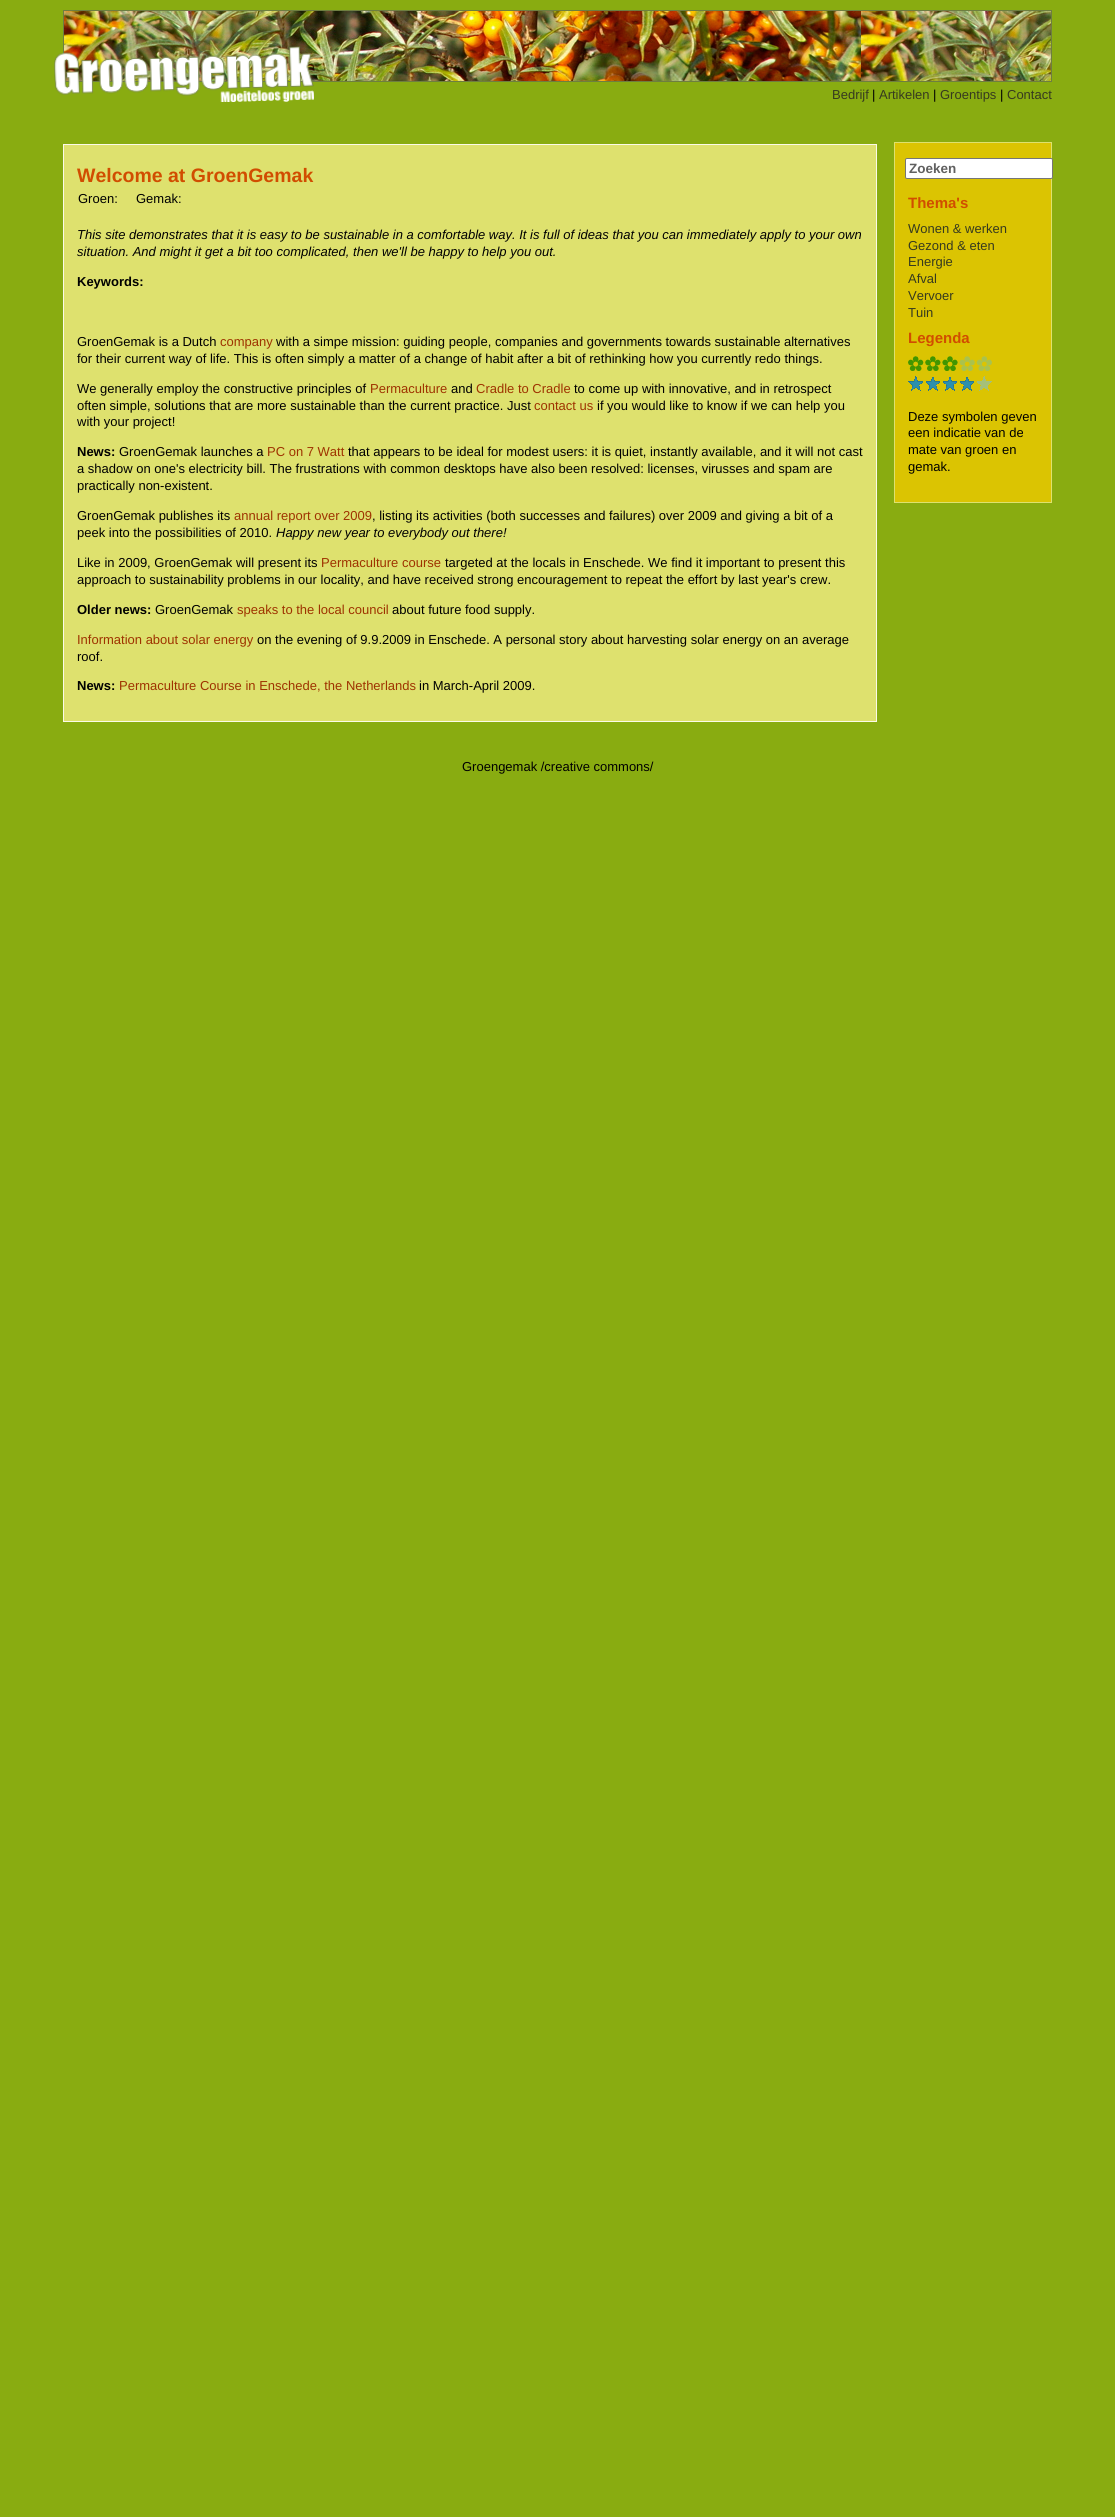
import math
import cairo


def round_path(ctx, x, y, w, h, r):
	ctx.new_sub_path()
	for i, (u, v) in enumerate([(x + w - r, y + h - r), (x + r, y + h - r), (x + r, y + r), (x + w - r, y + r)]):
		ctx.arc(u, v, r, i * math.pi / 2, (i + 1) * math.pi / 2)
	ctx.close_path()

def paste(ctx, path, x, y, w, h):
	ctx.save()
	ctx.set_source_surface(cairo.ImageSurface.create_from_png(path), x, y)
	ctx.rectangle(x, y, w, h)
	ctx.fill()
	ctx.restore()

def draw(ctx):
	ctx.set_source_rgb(0.537, 0.675, 0.067)
	ctx.paint()
	paste(ctx, 'media/1.png', 64, 11, 987, 70)
	ctx.rectangle(63.5, 10.5, 988, 71)
	ctx.set_source_rgb(0.431, 0.494, 0.251)
	ctx.set_line_width(1)
	ctx.stroke()
	paste(ctx, 'media/2.png', 54, 46, 260, 56)
	ctx.select_font_face('Liberation Sans')
	ctx.set_font_size(13)
	ctx.set_source_rgb(0.212, 0.227, 0.122)
	ctx.move_to(832, 99)
	ctx.show_text('Bedrijf')
	ctx.set_source_rgb(0, 0, 0)
	ctx.move_to(872, 99)
	ctx.show_text('|')
	ctx.set_source_rgb(0.212, 0.227, 0.122)
	ctx.move_to(879, 99)
	ctx.show_text('Artikelen')
	ctx.set_source_rgb(0, 0, 0)
	ctx.move_to(933, 99)
	ctx.show_text('|')
	ctx.set_source_rgb(0.212, 0.227, 0.122)
	ctx.move_to(940, 99)
	ctx.show_text('Groentips')
	ctx.set_source_rgb(0, 0, 0)
	ctx.move_to(1000, 99)
	ctx.show_text('|')
	ctx.set_source_rgb(0.212, 0.227, 0.122)
	ctx.move_to(1007, 99)
	ctx.show_text('Contact')
	ctx.set_source_rgb(0.871, 0.882, 0.431)
	ctx.rectangle(63.5, 144.5, 813, 577)
	ctx.fill_preserve()
	ctx.set_source_rgb(0.984, 0.98, 0.91)
	ctx.stroke()
	ctx.select_font_face('Liberation Sans', cairo.FONT_SLANT_NORMAL, cairo.FONT_WEIGHT_BOLD)
	ctx.set_font_size(19.5)
	ctx.set_source_rgb(0.82, 0.302, 0)
	ctx.move_to(77, 182)
	ctx.show_text('Welcome at GroenGemak')
	ctx.select_font_face('Liberation Sans')
	ctx.set_font_size(13)
	ctx.set_source_rgb(0, 0, 0)
	ctx.move_to(78, 203)
	ctx.show_text('Groen:')
	ctx.move_to(136, 203)
	ctx.show_text('Gemak:')
	ctx.select_font_face('Liberation Sans', cairo.FONT_SLANT_ITALIC)
	ctx.move_to(77, 239)
	ctx.show_text('This site demonstrates that it is easy to be sustainable in a comfortable way. It is full of ideas that you can immediately apply to your own')
	ctx.move_to(77, 256)
	ctx.show_text('situation. And might it get a bit too complicated, then we\'ll be happy to help you out.')
	ctx.select_font_face('Liberation Sans', cairo.FONT_SLANT_NORMAL, cairo.FONT_WEIGHT_BOLD)
	ctx.move_to(77, 286)
	ctx.show_text('Keywords:')
	ctx.select_font_face('Liberation Sans')
	ctx.move_to(77, 346)
	ctx.show_text('GroenGemak is a Dutch')
	ctx.set_source_rgb(0.62, 0.2, 0)
	ctx.move_to(220, 346)
	ctx.show_text('company')
	ctx.set_source_rgb(0, 0, 0)
	for x, y, s in [
		(276, 346, 'with a simpe mission: guiding people, companies and governments towards sustainable alternatives'),
		(77, 363, 'for their current way of life. This is often simply a matter of a change of habit after a bit of rethinking how you currently redo things.'),
		(77, 393, 'We generally employ the constructive principles of'),
	]:
		ctx.move_to(x, y)
		ctx.show_text(s)
	ctx.set_source_rgb(0.62, 0.2, 0)
	ctx.move_to(370, 393)
	ctx.show_text('Permaculture')
	ctx.set_source_rgb(0, 0, 0)
	ctx.move_to(451, 393)
	ctx.show_text('and')
	ctx.set_source_rgb(0.62, 0.2, 0)
	ctx.move_to(476, 393)
	ctx.show_text('Cradle to Cradle')
	ctx.set_source_rgb(0, 0, 0)
	ctx.move_to(574, 393)
	ctx.show_text('to come up with innovative, and in retrospect')
	ctx.move_to(77, 410)
	ctx.show_text('often simple, solutions that are more sustainable than the current practice. Just')
	ctx.set_source_rgb(0.62, 0.2, 0)
	ctx.move_to(534, 410)
	ctx.show_text('contact us')
	ctx.set_source_rgb(0, 0, 0)
	ctx.move_to(597, 410)
	ctx.show_text('if you would like to know if we can help you')
	ctx.move_to(77, 426)
	ctx.show_text('with your project!')
	ctx.select_font_face('Liberation Sans', cairo.FONT_SLANT_NORMAL, cairo.FONT_WEIGHT_BOLD)
	ctx.move_to(77, 456)
	ctx.show_text('News:')
	ctx.select_font_face('Liberation Sans')
	ctx.move_to(119, 456)
	ctx.show_text('GroenGemak launches a')
	ctx.set_source_rgb(0.62, 0.2, 0)
	ctx.move_to(267, 456)
	ctx.show_text('PC on 7 Watt')
	ctx.set_source_rgb(0, 0, 0)
	for x, y, s in [
		(348, 456, 'that appears to be ideal for modest users: it is quiet, instantly available, and it will not cast'),
		(77, 473, 'a shadow on one\'s electricity bill. The frustrations with common desktops have also been resolved: licenses, virusses and spam are'),
		(77, 490, 'practically non-existent.'),
		(77, 520, 'GroenGemak publishes its'),
	]:
		ctx.move_to(x, y)
		ctx.show_text(s)
	ctx.set_source_rgb(0.62, 0.2, 0)
	ctx.move_to(234, 520)
	ctx.show_text('annual report over 2009')
	ctx.set_source_rgb(0, 0, 0)
	ctx.move_to(372, 520)
	ctx.show_text(', listing its activities (both successes and failures) over 2009 and giving a bit of a')
	ctx.move_to(77, 537)
	ctx.show_text('peek into the possibilities of 2010.')
	ctx.select_font_face('Liberation Sans', cairo.FONT_SLANT_ITALIC)
	ctx.move_to(276, 537)
	ctx.show_text('Happy new year to everybody out there!')
	ctx.select_font_face('Liberation Sans')
	ctx.move_to(77, 567)
	ctx.show_text('Like in 2009, GroenGemak will present its')
	ctx.set_source_rgb(0.62, 0.2, 0)
	ctx.move_to(321, 567)
	ctx.show_text('Permaculture course')
	ctx.set_source_rgb(0, 0, 0)
	ctx.move_to(445, 567)
	ctx.show_text('targeted at the locals in Enschede. We find it important to present this')
	ctx.move_to(77, 584)
	ctx.show_text('approach to sustainability problems in our locality, and have received strong encouragement to repeat the effort by last year\'s crew.')
	ctx.select_font_face('Liberation Sans', cairo.FONT_SLANT_NORMAL, cairo.FONT_WEIGHT_BOLD)
	ctx.move_to(77, 614)
	ctx.show_text('Older news:')
	ctx.select_font_face('Liberation Sans')
	ctx.move_to(155, 614)
	ctx.show_text('GroenGemak')
	ctx.set_source_rgb(0.62, 0.2, 0)
	ctx.move_to(237, 614)
	ctx.show_text('speaks to the local council')
	ctx.set_source_rgb(0, 0, 0)
	ctx.move_to(392, 614)
	ctx.show_text('about future food supply.')
	ctx.set_source_rgb(0.62, 0.2, 0)
	ctx.move_to(77, 644)
	ctx.show_text('Information about solar energy')
	ctx.set_source_rgb(0, 0, 0)
	ctx.move_to(257, 644)
	ctx.show_text('on the evening of 9.9.2009 in Enschede. A personal story about harvesting solar energy on an average')
	ctx.move_to(77, 661)
	ctx.show_text('roof.')
	ctx.select_font_face('Liberation Sans', cairo.FONT_SLANT_NORMAL, cairo.FONT_WEIGHT_BOLD)
	ctx.move_to(77, 690)
	ctx.show_text('News:')
	ctx.select_font_face('Liberation Sans')
	ctx.set_source_rgb(0.62, 0.2, 0)
	ctx.move_to(119, 690)
	ctx.show_text('Permaculture Course in Enschede, the Netherlands')
	ctx.set_source_rgb(0, 0, 0)
	ctx.move_to(419, 690)
	ctx.show_text('in March-April 2009.')
	ctx.move_to(462, 771)
	ctx.show_text('Groengemak /creative commons/')
	ctx.set_source_rgb(0.859, 0.769, 0.008)
	ctx.rectangle(894.5, 142.5, 157, 360)
	ctx.fill_preserve()
	ctx.set_source_rgb(0.871, 0.882, 0.431)
	ctx.stroke()
	ctx.set_source_rgb(1, 1, 1)
	round_path(ctx, 905.5, 158.5, 147, 20, 1.5)
	ctx.fill_preserve()
	ctx.set_source_rgb(0.463, 0.463, 0.463)
	ctx.stroke()
	ctx.select_font_face('Liberation Sans', cairo.FONT_SLANT_NORMAL, cairo.FONT_WEIGHT_BOLD)
	ctx.set_font_size(13.5)
	ctx.set_source_rgb(0.376, 0.376, 0.376)
	ctx.move_to(909, 173)
	ctx.show_text('Zoeken')
	ctx.set_font_size(15)
	ctx.set_source_rgb(0.82, 0.302, 0)
	ctx.move_to(908, 208)
	ctx.show_text('Thema\'s')
	ctx.select_font_face('Liberation Sans')
	ctx.set_font_size(13)
	ctx.set_source_rgb(0.212, 0.227, 0.122)
	for x, y, s in [
		(908, 233, 'Wonen & werken'),
		(908, 250, 'Gezond & eten'),
		(908, 266, 'Energie'),
		(908, 283, 'Afval'),
		(908, 300, 'Vervoer'),
		(908, 317, 'Tuin'),
	]:
		ctx.move_to(x, y)
		ctx.show_text(s)
	ctx.select_font_face('Liberation Sans', cairo.FONT_SLANT_NORMAL, cairo.FONT_WEIGHT_BOLD)
	ctx.set_font_size(15)
	ctx.set_source_rgb(0.82, 0.302, 0)
	ctx.move_to(908, 343)
	ctx.show_text('Legenda')
	paste(ctx, 'media/3.png', 908, 356, 84, 15)
	paste(ctx, 'media/4.png', 908, 376, 84, 15)
	ctx.select_font_face('Liberation Sans')
	ctx.set_font_size(13)
	ctx.set_source_rgb(0, 0, 0)
	for x, y, s in [
		(908, 421, 'Deze symbolen geven'),
		(908, 437, 'een indicatie van de'),
		(908, 454, 'mate van groen en'),
		(908, 471, 'gemak.'),
	]:
		ctx.move_to(x, y)
		ctx.show_text(s)


surface = cairo.ImageSurface(cairo.FORMAT_RGB24, 1115, 2517)
ctx = cairo.Context(surface)
options = cairo.FontOptions()
options.set_hint_metrics(cairo.HINT_METRICS_OFF)
options.set_hint_style(cairo.HINT_STYLE_NONE)
ctx.set_font_options(options)
ctx.set_miter_limit(4)
draw(ctx)
surface.write_to_png('image.png')
